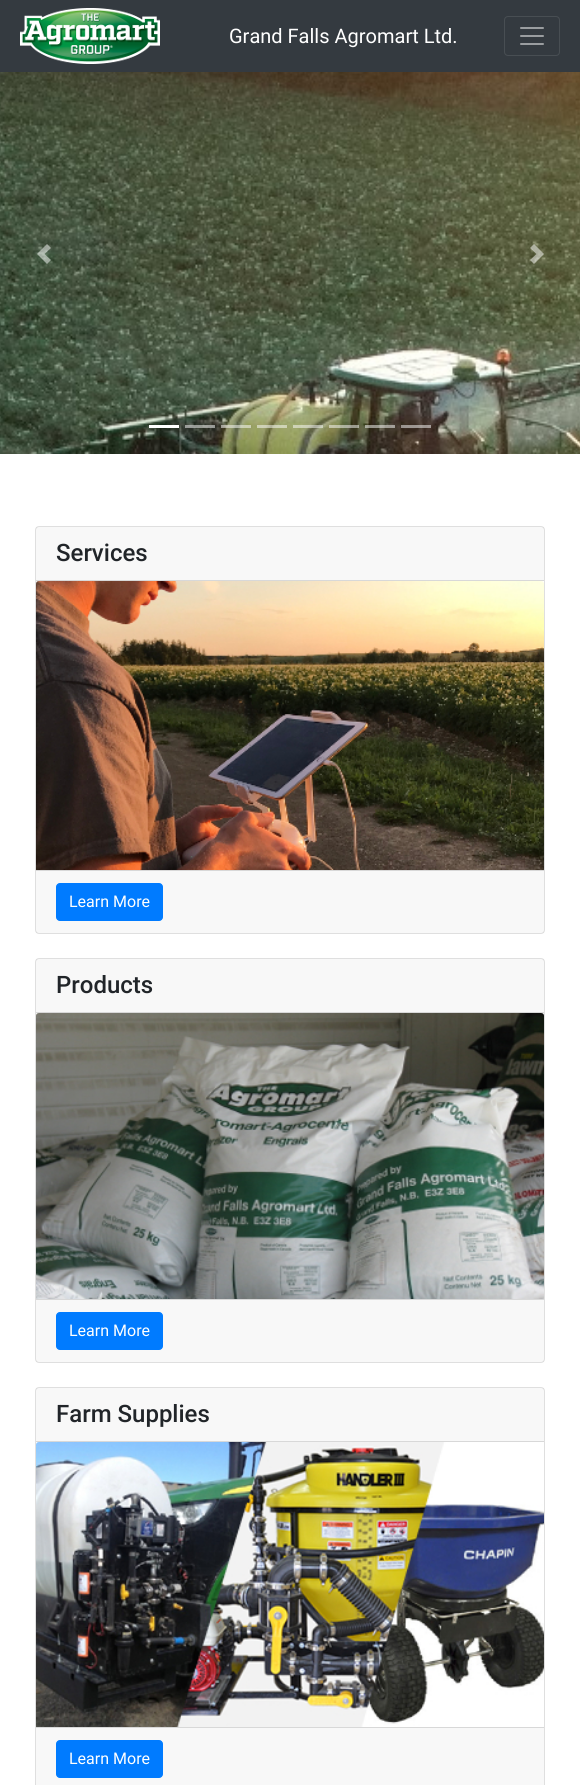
import math
import cairo


def round_path(ctx, x, y, w, h, r):
	ctx.new_sub_path()
	for i, (u, v) in enumerate([(x + w - r, y + h - r), (x + r, y + h - r), (x + r, y + r), (x + w - r, y + r)]):
		ctx.arc(u, v, r, i * math.pi / 2, (i + 1) * math.pi / 2)
	ctx.close_path()

def paste(ctx, path, x, y, w, h):
	ctx.save()
	ctx.set_source_surface(cairo.ImageSurface.create_from_png(path), x, y)
	ctx.rectangle(x, y, w, h)
	ctx.fill()
	ctx.restore()

def draw(ctx):
	ctx.set_source_rgb(1, 1, 1)
	ctx.paint()
	ctx.set_source_rgb(0.204, 0.227, 0.251)
	ctx.rectangle(0, 0, 580, 72)
	ctx.fill()
	paste(ctx, 'media/1.png', 20, 8, 140, 56)
	ctx.select_font_face('Roboto')
	ctx.set_font_size(20)
	ctx.set_source_rgb(1, 1, 1)
	ctx.move_to(229, 43)
	ctx.show_text('Grand Falls Agromart Ltd.')
	round_path(ctx, 504.5, 16.5, 55, 39, 3.5)
	ctx.set_source_rgb(0.282, 0.306, 0.325)
	ctx.set_line_width(1)
	ctx.stroke()
	paste(ctx, 'media/2.png', 520, 27, 24, 18)
	paste(ctx, 'media/3.png', 0, 72, 580, 382)
	ctx.set_source_rgba(1, 1, 1, 0.5)
	ctx.new_path()
	ctx.move_to(47, 244)
	ctx.line_to(37, 254)
	ctx.line_to(47, 264)
	ctx.line_to(51, 260)
	ctx.line_to(44.5, 254)
	ctx.line_to(51, 248)
	ctx.close_path()
	ctx.fill()
	ctx.new_path()
	ctx.move_to(534, 244)
	ctx.line_to(530, 248)
	ctx.line_to(536.5, 254)
	ctx.line_to(530, 260)
	ctx.line_to(534, 264)
	ctx.line_to(544, 254)
	ctx.close_path()
	ctx.fill()
	ctx.set_source_rgb(1, 1, 1)
	ctx.rectangle(149, 425, 30, 3)
	ctx.fill()
	ctx.set_source_rgba(1, 1, 1, 0.5)
	ctx.rectangle(185, 425, 30, 3)
	ctx.fill()
	ctx.rectangle(221, 425, 30, 3)
	ctx.fill()
	ctx.rectangle(257, 425, 30, 3)
	ctx.fill()
	ctx.rectangle(293, 425, 30, 3)
	ctx.fill()
	ctx.rectangle(329, 425, 30, 3)
	ctx.fill()
	ctx.rectangle(365, 425, 30, 3)
	ctx.fill()
	ctx.rectangle(401, 425, 30, 3)
	ctx.fill()
	round_path(ctx, 35.5, 526.5, 509, 407, 3.5)
	ctx.set_source_rgb(0.875, 0.875, 0.875)
	ctx.stroke()
	ctx.set_source_rgba(0, 0, 0, 0.03)
	ctx.rectangle(36, 527, 508, 53)
	ctx.fill()
	ctx.set_source_rgb(0.847, 0.847, 0.847)
	ctx.rectangle(36, 580, 508, 1)
	ctx.fill()
	ctx.select_font_face('Roboto Medium')
	ctx.set_font_size(24)
	ctx.set_source_rgb(0.129, 0.145, 0.161)
	ctx.move_to(56, 561)
	ctx.show_text('Services')
	paste(ctx, 'media/4.png', 36, 581, 508, 289)
	ctx.set_source_rgba(0, 0, 0, 0.03)
	ctx.rectangle(36, 871, 508, 62)
	ctx.fill()
	ctx.set_source_rgb(0.847, 0.847, 0.847)
	ctx.rectangle(36, 870, 508, 1)
	ctx.fill()
	ctx.set_source_rgb(0, 0.482, 1)
	round_path(ctx, 56.5, 883.5, 106, 37, 3.5)
	ctx.fill_preserve()
	ctx.stroke()
	ctx.select_font_face('Roboto')
	ctx.set_font_size(16)
	ctx.set_source_rgb(1, 1, 1)
	ctx.move_to(69, 907)
	ctx.show_text('Learn More')
	round_path(ctx, 35.5, 958.5, 509, 404, 3.5)
	ctx.set_source_rgb(0.875, 0.875, 0.875)
	ctx.stroke()
	ctx.set_source_rgba(0, 0, 0, 0.03)
	ctx.rectangle(36, 959, 508, 53)
	ctx.fill()
	ctx.set_source_rgb(0.847, 0.847, 0.847)
	ctx.rectangle(36, 1012, 508, 1)
	ctx.fill()
	ctx.select_font_face('Roboto Medium')
	ctx.set_font_size(24)
	ctx.set_source_rgb(0.129, 0.145, 0.161)
	ctx.move_to(56, 993)
	ctx.show_text('Products')
	paste(ctx, 'media/5.png', 36, 1013, 508, 286)
	ctx.set_source_rgba(0, 0, 0, 0.03)
	ctx.rectangle(36, 1300, 508, 62)
	ctx.fill()
	ctx.set_source_rgb(0.847, 0.847, 0.847)
	ctx.rectangle(36, 1299, 508, 1)
	ctx.fill()
	ctx.set_source_rgb(0, 0.482, 1)
	round_path(ctx, 56.5, 1312.5, 106, 37, 3.5)
	ctx.fill_preserve()
	ctx.stroke()
	ctx.select_font_face('Roboto')
	ctx.set_font_size(16)
	ctx.set_source_rgb(1, 1, 1)
	ctx.move_to(69, 1336)
	ctx.show_text('Learn More')
	round_path(ctx, 35.5, 1387.5, 509, 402, 3.5)
	ctx.set_source_rgb(0.875, 0.875, 0.875)
	ctx.stroke()
	ctx.set_source_rgba(0, 0, 0, 0.03)
	ctx.rectangle(36, 1388, 508, 53)
	ctx.fill()
	ctx.set_source_rgb(0.847, 0.847, 0.847)
	ctx.rectangle(36, 1441, 508, 1)
	ctx.fill()
	ctx.select_font_face('Roboto Medium')
	ctx.set_font_size(24)
	ctx.set_source_rgb(0.129, 0.145, 0.161)
	ctx.move_to(56, 1422)
	ctx.show_text('Farm Supplies')
	paste(ctx, 'media/6.png', 36, 1442, 508, 285)
	ctx.set_source_rgb(0.969, 0.969, 0.969)
	ctx.rectangle(36, 1728, 508, 57)
	ctx.fill()
	ctx.set_source_rgb(0.847, 0.847, 0.847)
	ctx.rectangle(36, 1727, 508, 1)
	ctx.fill()
	ctx.set_source_rgb(0, 0.482, 1)
	round_path(ctx, 56.5, 1740.5, 106, 37, 3.5)
	ctx.fill_preserve()
	ctx.stroke()
	ctx.select_font_face('Roboto')
	ctx.set_font_size(16)
	ctx.set_source_rgb(1, 1, 1)
	ctx.move_to(69, 1764)
	ctx.show_text('Learn More')


surface = cairo.ImageSurface(cairo.FORMAT_RGB24, 580, 1785)
ctx = cairo.Context(surface)
options = cairo.FontOptions()
options.set_hint_metrics(cairo.HINT_METRICS_OFF)
options.set_hint_style(cairo.HINT_STYLE_NONE)
ctx.set_font_options(options)
ctx.set_miter_limit(4)
draw(ctx)
surface.write_to_png('image.png')
